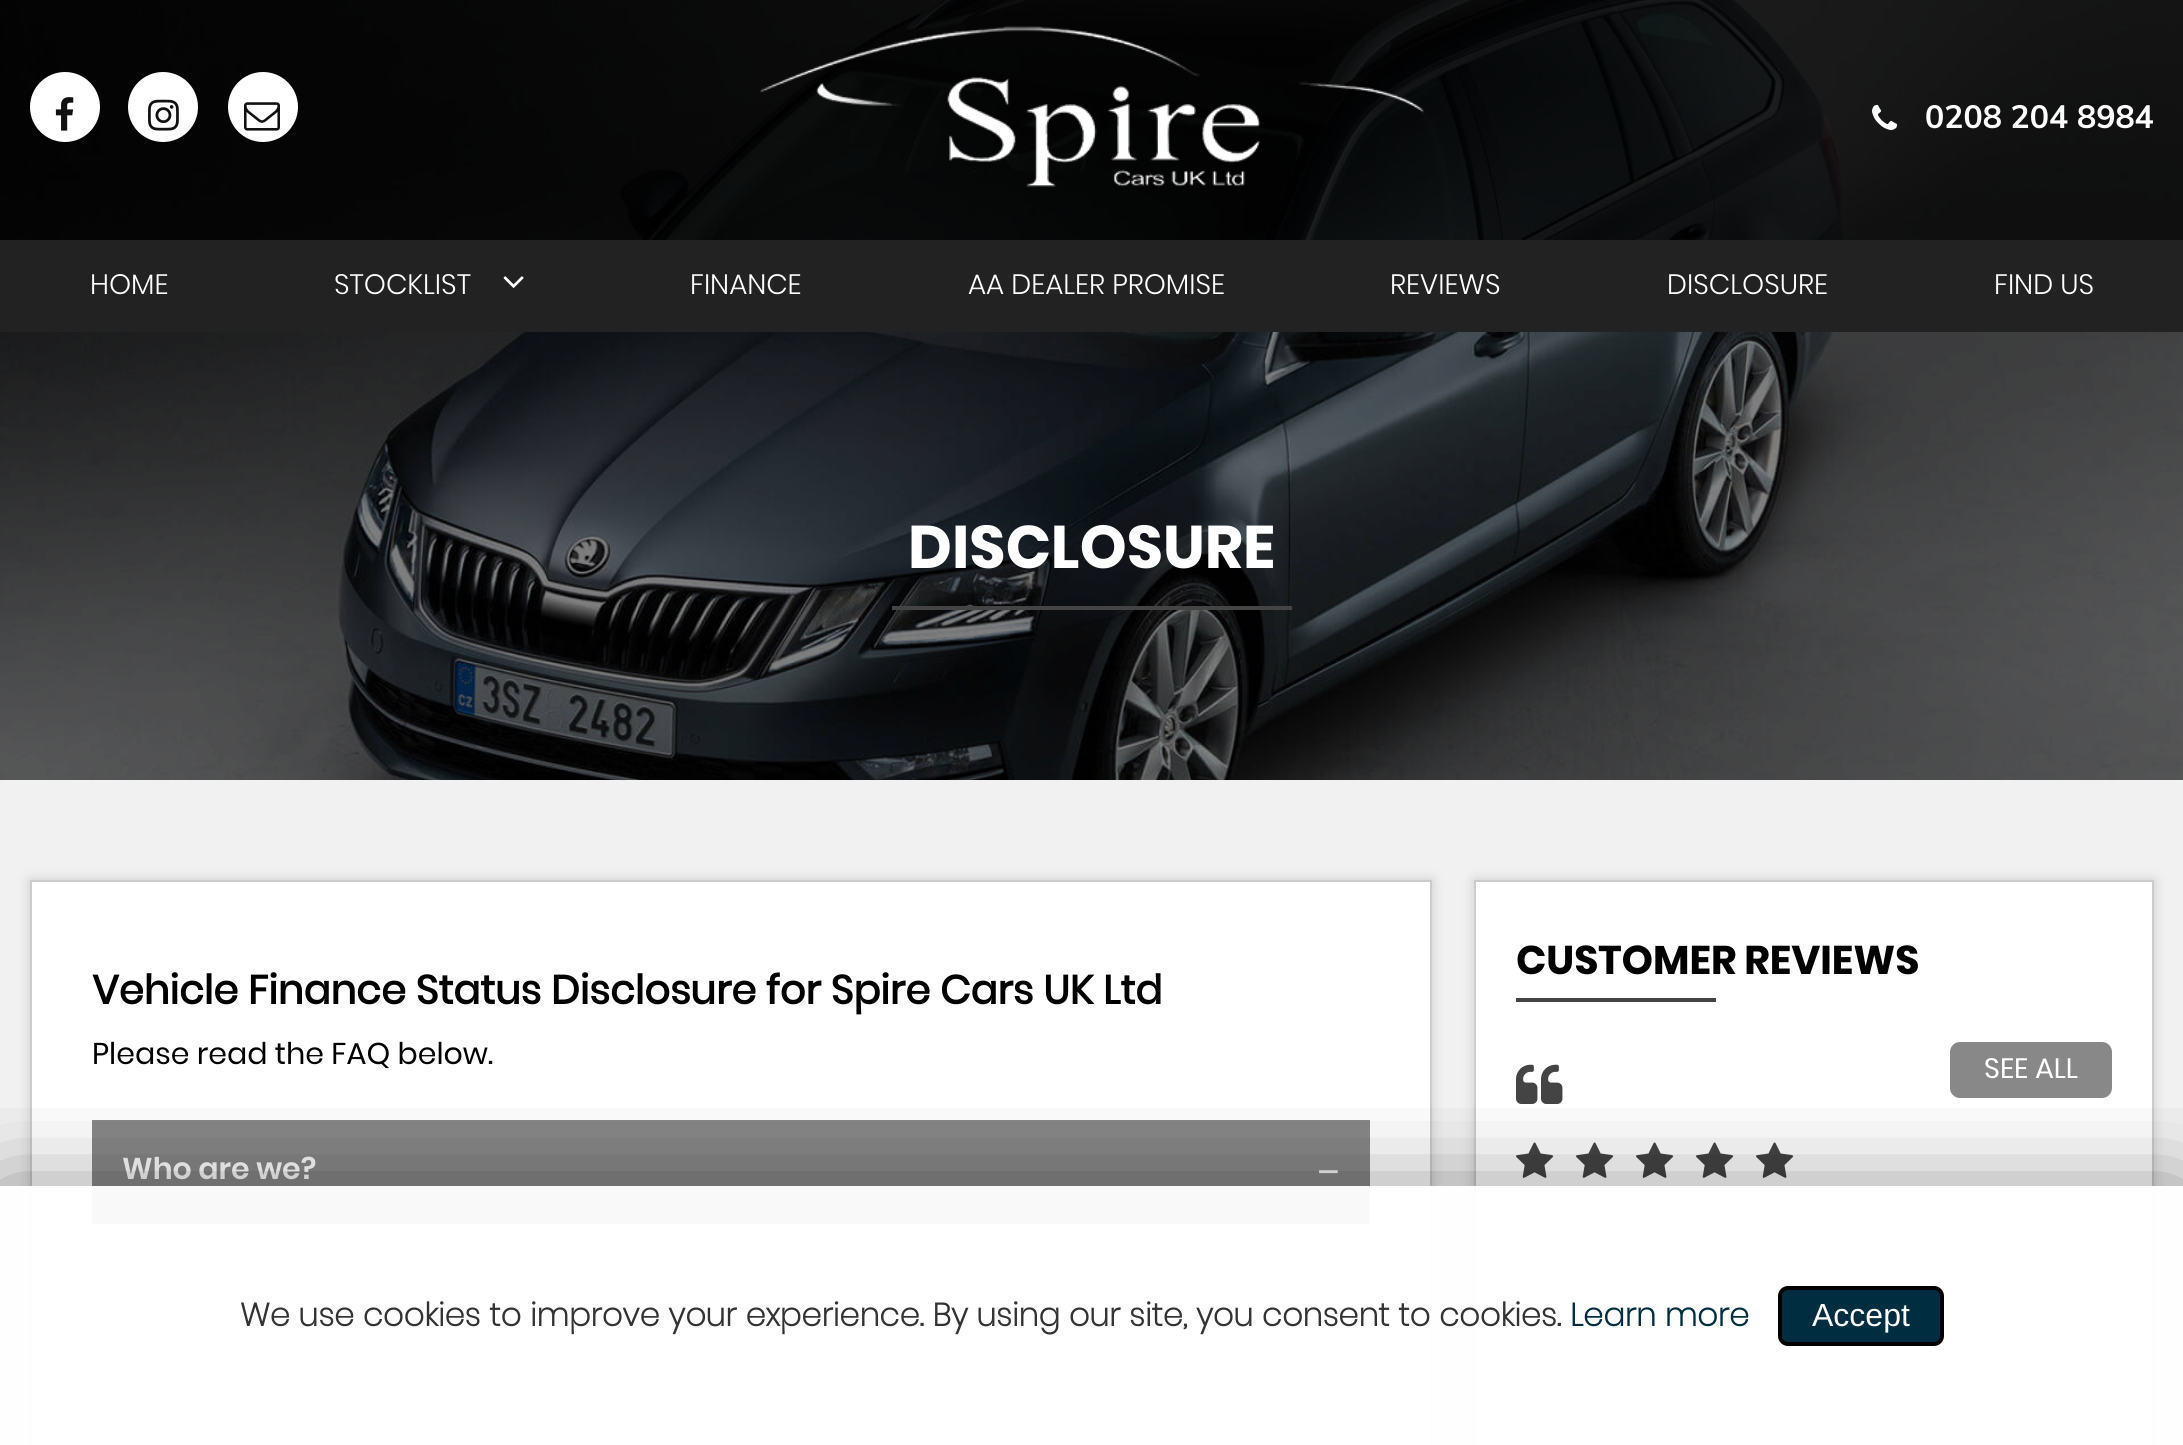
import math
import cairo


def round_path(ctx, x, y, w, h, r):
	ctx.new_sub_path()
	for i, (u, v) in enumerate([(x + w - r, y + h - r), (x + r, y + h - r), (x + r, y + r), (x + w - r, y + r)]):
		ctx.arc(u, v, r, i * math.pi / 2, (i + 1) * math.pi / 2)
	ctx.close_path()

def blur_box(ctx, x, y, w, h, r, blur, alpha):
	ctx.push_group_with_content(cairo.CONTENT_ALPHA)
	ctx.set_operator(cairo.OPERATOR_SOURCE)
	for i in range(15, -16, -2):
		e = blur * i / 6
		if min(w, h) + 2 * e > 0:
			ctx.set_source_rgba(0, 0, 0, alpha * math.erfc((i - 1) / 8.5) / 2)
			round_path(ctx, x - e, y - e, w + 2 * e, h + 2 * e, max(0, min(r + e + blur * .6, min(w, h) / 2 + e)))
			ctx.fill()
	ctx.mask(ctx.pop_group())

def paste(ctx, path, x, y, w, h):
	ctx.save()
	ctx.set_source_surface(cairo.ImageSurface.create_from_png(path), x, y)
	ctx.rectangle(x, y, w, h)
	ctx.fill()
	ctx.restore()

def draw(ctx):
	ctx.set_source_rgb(1, 1, 1)
	ctx.paint()
	paste(ctx, 'media/7.png', 0, 0, 2183, 780)
	ctx.set_source_rgba(0, 0, 0, 0.5)
	ctx.rectangle(0, 0, 2183, 240)
	ctx.fill()
	ctx.rectangle(0, 0, 2183, 240)
	ctx.fill()
	paste(ctx, 'media/1.png', 760, 26, 664, 161)
	ctx.set_source_rgb(1, 1, 1)
	ctx.arc(65, 107, 35, 0, 2 * math.pi)
	ctx.fill()
	paste(ctx, 'media/2.png', 55, 97, 19, 34)
	ctx.arc(163, 107, 35, 0, 2 * math.pi)
	ctx.fill()
	paste(ctx, 'media/3.png', 148, 99, 31, 32)
	ctx.arc(263, 107, 35, 0, 2 * math.pi)
	ctx.fill()
	paste(ctx, 'media/4.png', 244, 102, 36, 29)
	paste(ctx, 'media/5.png', 1872, 104, 26, 26)
	ctx.select_font_face('Muli', cairo.FONT_SLANT_NORMAL, cairo.FONT_WEIGHT_BOLD)
	ctx.set_font_size(32)
	ctx.move_to(1925, 128)
	ctx.show_text('0208 204 8984')
	ctx.set_source_rgb(0.133, 0.133, 0.133)
	ctx.rectangle(0, 240, 2183, 92)
	ctx.fill()
	ctx.select_font_face('Poppins Light')
	ctx.set_font_size(28)
	ctx.set_source_rgb(1, 1, 1)
	ctx.move_to(90, 294)
	ctx.show_text('HOME')
	ctx.move_to(334, 294)
	ctx.show_text('STOCKLIST')
	paste(ctx, 'media/6.png', 503, 276, 21, 12)
	for x, y, s in [
		(690, 294, 'FINANCE'),
		(968, 294, 'AA DEALER PROMISE'),
		(1390, 294, 'REVIEWS'),
		(1667, 294, 'DISCLOSURE'),
		(1994, 294, 'FIND US'),
	]:
		ctx.move_to(x, y)
		ctx.show_text(s)
	ctx.select_font_face('Poppins', cairo.FONT_SLANT_NORMAL, cairo.FONT_WEIGHT_BOLD)
	ctx.set_font_size(60)
	ctx.move_to(908, 568)
	ctx.show_text('DISCLOSURE')
	ctx.set_source_rgb(0.267, 0.267, 0.267)
	ctx.rectangle(892, 606, 400, 4)
	ctx.fill()
	ctx.set_source_rgb(0.945, 0.945, 0.945)
	ctx.rectangle(0, 780, 2183, 665)
	ctx.fill()
	ctx.set_source_rgb(0.8, 0.8, 0.8)
	blur_box(ctx, 30, 880, 1402, 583, 0, 6, 1)
	ctx.set_source_rgb(1, 1, 1)
	ctx.rectangle(31, 881, 1400, 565)
	ctx.fill_preserve()
	ctx.set_source_rgb(0.8, 0.8, 0.8)
	ctx.stroke()
	ctx.select_font_face('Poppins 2', cairo.FONT_SLANT_NORMAL, cairo.FONT_WEIGHT_BOLD)
	ctx.set_font_size(40)
	ctx.set_source_rgb(0, 0, 0)
	ctx.move_to(92, 1004)
	ctx.show_text('Vehicle Finance Status Disclosure for Spire Cars UK Ltd')
	ctx.select_font_face('Poppins')
	ctx.set_font_size(30)
	ctx.move_to(92, 1064)
	ctx.show_text('Please read the FAQ below.')
	ctx.set_source_rgb(0.533, 0.533, 0.533)
	ctx.rectangle(92, 1120, 1278, 104)
	ctx.fill()
	ctx.select_font_face('Poppins SemiBold')
	ctx.set_source_rgb(1, 1, 1)
	ctx.move_to(122, 1179)
	ctx.show_text('Who are we?')
	ctx.select_font_face('Liberation Serif', cairo.FONT_SLANT_NORMAL, cairo.FONT_WEIGHT_BOLD)
	ctx.set_font_size(40)
	ctx.move_to(1317, 1185)
	ctx.show_text('−')
	ctx.set_source_rgb(0.8, 0.8, 0.8)
	blur_box(ctx, 1474, 880, 680, 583, 0, 6, 1)
	ctx.set_source_rgb(1, 1, 1)
	ctx.rectangle(1475, 881, 678, 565)
	ctx.fill_preserve()
	ctx.set_source_rgb(0.8, 0.8, 0.8)
	ctx.stroke()
	ctx.select_font_face('Poppins', cairo.FONT_SLANT_NORMAL, cairo.FONT_WEIGHT_BOLD)
	ctx.set_source_rgb(0, 0, 0)
	ctx.move_to(1516, 974)
	ctx.show_text('CUSTOMER REVIEWS')
	ctx.set_source_rgb(0.267, 0.267, 0.267)
	ctx.rectangle(1516, 998, 200, 4)
	ctx.fill()
	paste(ctx, 'media/8.png', 1516, 1064, 47, 40)
	paste(ctx, 'media/9.png', 1516, 1142, 38, 36)
	paste(ctx, 'media/9.png', 1576, 1142, 38, 36)
	paste(ctx, 'media/9.png', 1636, 1142, 38, 36)
	paste(ctx, 'media/9.png', 1696, 1142, 38, 36)
	paste(ctx, 'media/9.png', 1756, 1142, 38, 36)
	ctx.set_source_rgb(0.533, 0.533, 0.533)
	round_path(ctx, 1952, 1044, 158, 52, 8)
	ctx.fill_preserve()
	ctx.set_line_width(4)
	ctx.stroke()
	ctx.select_font_face('Poppins')
	ctx.set_font_size(28)
	ctx.set_source_rgb(1, 1, 1)
	ctx.move_to(1984, 1078)
	ctx.show_text('SEE ALL')
	ctx.save()
	ctx.rectangle(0, 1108, 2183, 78)
	ctx.clip()
	ctx.set_source_rgb(0, 0, 0)
	blur_box(ctx, 0, 1196, 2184, 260, 0, 50, 0.5)
	ctx.restore()
	ctx.set_source_rgba(1, 1, 1, 0.95)
	ctx.rectangle(0, 1186, 2183, 259)
	ctx.fill()
	ctx.select_font_face('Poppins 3', cairo.FONT_SLANT_NORMAL, cairo.FONT_WEIGHT_BOLD)
	ctx.set_font_size(32)
	ctx.set_source_rgb(0.2, 0.2, 0.2)
	ctx.move_to(240, 1326)
	ctx.show_text('We use cookies to improve your experience. By using our site, you consent to cookies.')
	ctx.set_source_rgb(0.004, 0.176, 0.255)
	ctx.move_to(1570, 1326)
	ctx.show_text('Learn more')
	round_path(ctx, 1780, 1288, 162, 56, 8)
	ctx.fill_preserve()
	ctx.set_source_rgb(0, 0, 0)
	ctx.stroke()
	ctx.select_font_face('Liberation Sans')
	ctx.set_source_rgb(1, 1, 1)
	ctx.move_to(1812, 1326)
	ctx.show_text('Accept')


surface = cairo.ImageSurface(cairo.FORMAT_RGB24, 2183, 1445)
ctx = cairo.Context(surface)
options = cairo.FontOptions()
options.set_hint_metrics(cairo.HINT_METRICS_OFF)
options.set_hint_style(cairo.HINT_STYLE_NONE)
ctx.set_font_options(options)
ctx.set_miter_limit(4)
draw(ctx)
surface.write_to_png('image.png')
